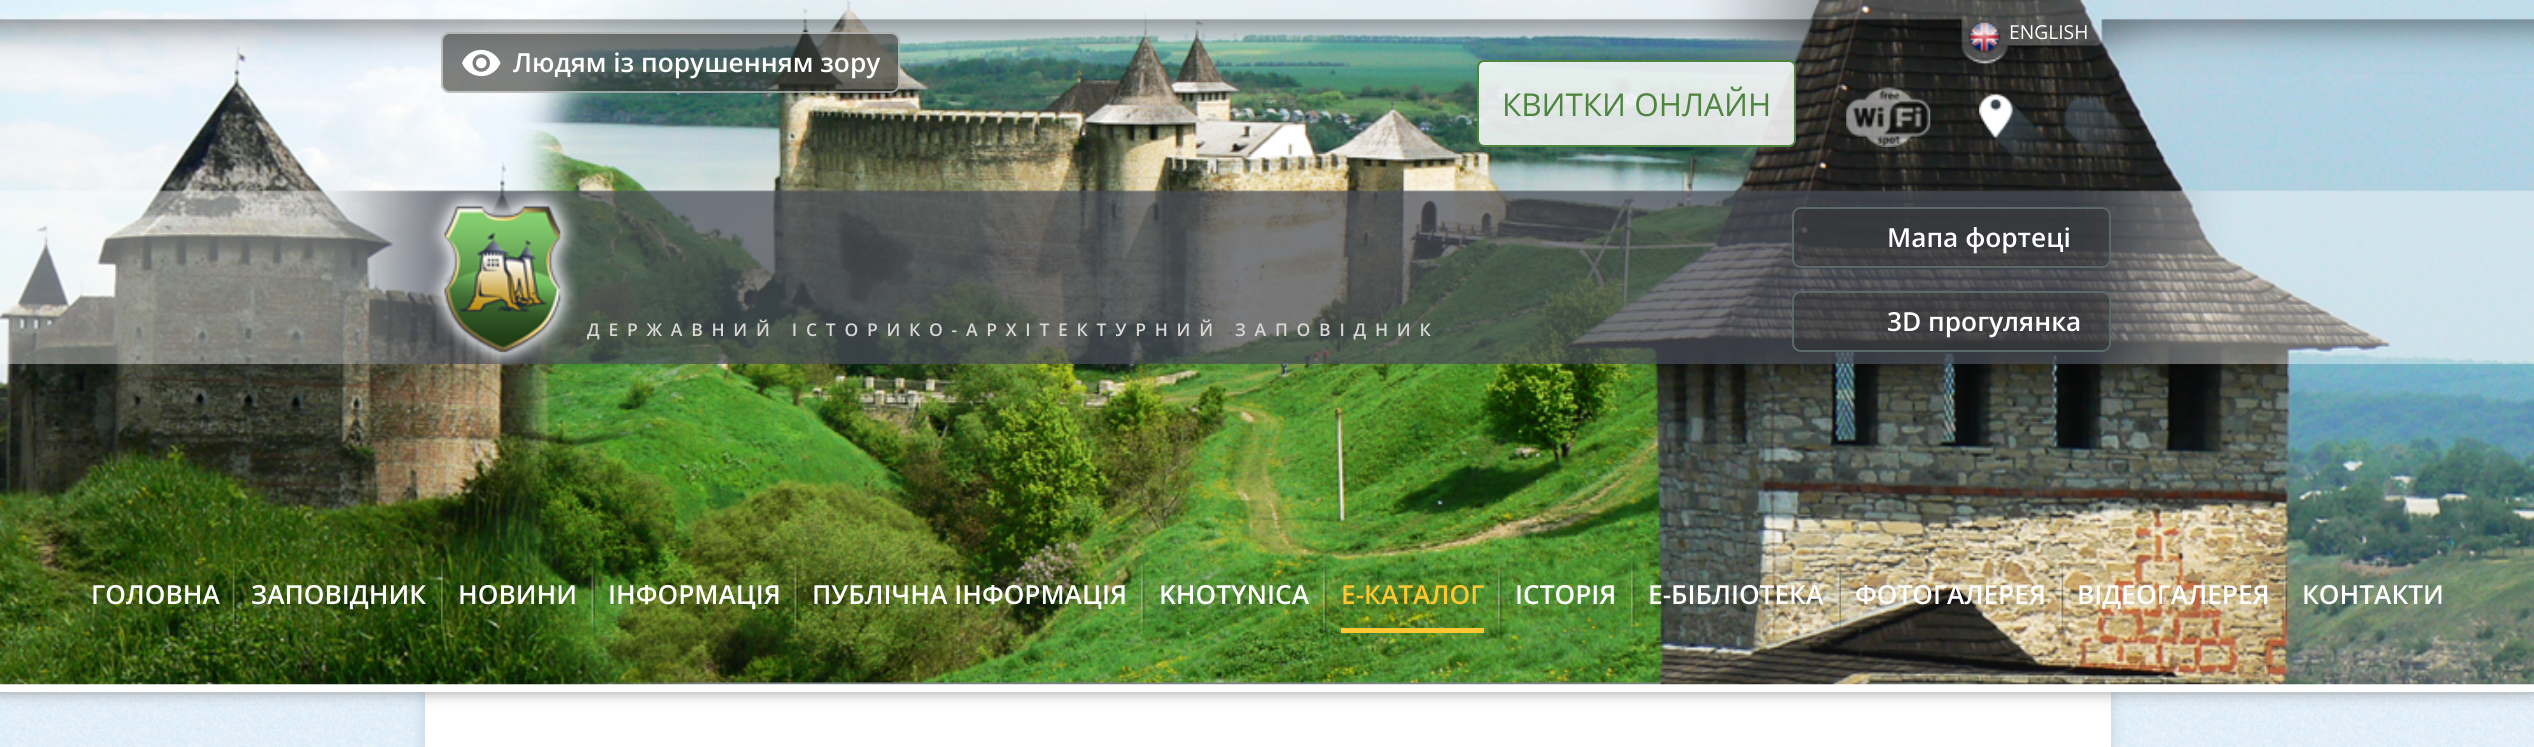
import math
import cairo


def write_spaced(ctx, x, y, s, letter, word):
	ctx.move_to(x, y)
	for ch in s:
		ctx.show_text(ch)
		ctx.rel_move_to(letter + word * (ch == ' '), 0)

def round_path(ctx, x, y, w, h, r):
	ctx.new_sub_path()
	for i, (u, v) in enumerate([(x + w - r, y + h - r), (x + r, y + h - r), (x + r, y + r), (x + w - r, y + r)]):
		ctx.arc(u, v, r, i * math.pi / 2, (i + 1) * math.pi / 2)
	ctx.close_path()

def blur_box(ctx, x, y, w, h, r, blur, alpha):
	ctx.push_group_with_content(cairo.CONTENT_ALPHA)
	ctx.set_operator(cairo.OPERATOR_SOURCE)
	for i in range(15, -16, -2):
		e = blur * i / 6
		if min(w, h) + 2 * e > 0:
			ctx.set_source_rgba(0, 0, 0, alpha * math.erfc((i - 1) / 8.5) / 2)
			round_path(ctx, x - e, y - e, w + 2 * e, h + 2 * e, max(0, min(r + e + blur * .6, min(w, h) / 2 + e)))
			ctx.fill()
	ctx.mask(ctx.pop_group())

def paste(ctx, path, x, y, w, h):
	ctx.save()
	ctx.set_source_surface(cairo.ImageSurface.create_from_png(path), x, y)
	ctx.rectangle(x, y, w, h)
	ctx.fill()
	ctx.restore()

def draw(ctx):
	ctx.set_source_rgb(1, 1, 1)
	ctx.paint()
	paste(ctx, 'media/1.png', 0, 692, 2534, 55)
	ctx.set_source_rgb(0.745, 0.812, 0.871)
	blur_box(ctx, 425, 691, 1686, 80, 0, 8, 1)
	ctx.set_source_rgb(1, 1, 1)
	ctx.rectangle(425, 692, 1686, 55)
	ctx.fill()
	ctx.set_source_rgb(0.545, 0.545, 0.545)
	blur_box(ctx, 0, 0, 2534, 691, 0, 8, 1)
	ctx.set_source_rgb(1, 1, 1)
	ctx.rectangle(0, 684, 2534, 8)
	ctx.fill()
	paste(ctx, 'media/2.png', 0, 0, 2534, 685)
	paste(ctx, 'media/3.png', 0, 0, 2534, 75)
	paste(ctx, 'media/4.png', 1968, 21, 33, 32)
	ctx.select_font_face('Open Sans')
	ctx.set_font_size(19.25)
	ctx.move_to(2009, 39)
	ctx.show_text('ENGLISH')
	ctx.set_source_rgba(0.18, 0.184, 0.169, 0.6)
	round_path(ctx, 441, 32, 459, 61, 9)
	ctx.fill()
	round_path(ctx, 442, 33, 457, 59, 8)
	ctx.set_source_rgba(1, 1, 1, 0.5)
	ctx.stroke()
	paste(ctx, 'media/5.png', 462, 49, 39, 28)
	ctx.select_font_face('Open Sans SemiBold')
	ctx.set_font_size(26.25)
	ctx.set_source_rgb(1, 1, 1)
	ctx.move_to(513, 72)
	ctx.show_text('Людям із порушенням зору')
	ctx.set_source_rgba(1, 1, 1, 0.85)
	round_path(ctx, 1478, 61, 317, 85, 6)
	ctx.fill_preserve()
	ctx.set_source_rgb(0.302, 0.522, 0.243)
	ctx.stroke()
	ctx.select_font_face('Open Sans')
	ctx.set_font_size(31.5)
	ctx.move_to(1502, 116)
	ctx.show_text('КВИТКИ ОНЛАЙН')
	paste(ctx, 'media/6.png', 1980, 96, 155, 75)
	paste(ctx, 'media/7.png', 1846, 87, 85, 60)
	paste(ctx, 'media/8.png', 1979, 94, 34, 45)
	paste(ctx, 'media/9.png', 0, 190, 2534, 174)
	paste(ctx, 'media/10.png', 428, 192, 150, 174)
	ctx.select_font_face('Open Sans SemiBold')
	ctx.set_font_size(17.5)
	ctx.set_source_rgb(0.847, 0.843, 0.839)
	write_spaced(ctx, 587, 336, 'ДЕРЖАВНИЙ ІСТОРИКО-АРХІТЕКТУРНИЙ ЗАПОВІДНИК', 8.75, 0)
	ctx.set_source_rgba(0.18, 0.184, 0.169, 0.4)
	round_path(ctx, 1793, 208, 317, 59, 8)
	ctx.fill_preserve()
	ctx.set_source_rgb(0.361, 0.412, 0.42)
	ctx.stroke()
	ctx.set_font_size(26.25)
	ctx.set_source_rgb(1, 1, 1)
	ctx.move_to(1887, 247)
	ctx.show_text('Мапа фортеці')
	ctx.set_source_rgba(0.18, 0.184, 0.169, 0.4)
	round_path(ctx, 1793, 292, 317, 59, 8)
	ctx.fill_preserve()
	ctx.set_source_rgb(0.361, 0.412, 0.42)
	ctx.stroke()
	ctx.set_source_rgb(1, 1, 1)
	ctx.move_to(1887, 331)
	ctx.show_text('3D прогулянка')
	ctx.move_to(91, 604)
	ctx.show_text('ГОЛОВНА')
	paste(ctx, 'media/11.png', 232, 557, 5, 77)
	ctx.move_to(251, 604)
	ctx.show_text('ЗАПОВІДНИК')
	paste(ctx, 'media/12.png', 441, 557, 4, 77)
	ctx.move_to(458, 604)
	ctx.show_text('НОВИНИ')
	paste(ctx, 'media/13.png', 591, 557, 4, 77)
	ctx.move_to(608, 604)
	ctx.show_text('ІНФОРМАЦІЯ')
	paste(ctx, 'media/14.png', 794, 557, 4, 77)
	ctx.move_to(812, 604)
	ctx.show_text('ПУБЛІЧНА ІНФОРМАЦІЯ')
	paste(ctx, 'media/15.png', 1141, 557, 4, 77)
	ctx.move_to(1159, 604)
	ctx.show_text('KHOTYNICA')
	paste(ctx, 'media/16.png', 1323, 557, 4, 77)
	ctx.set_source_rgb(1, 0.784, 0.196)
	ctx.rectangle(1341, 628, 143, 5)
	ctx.fill()
	ctx.move_to(1341, 604)
	ctx.show_text('Е-КАТАЛОГ')
	paste(ctx, 'media/17.png', 1498, 557, 4, 77)
	ctx.set_source_rgb(1, 1, 1)
	ctx.move_to(1515, 604)
	ctx.show_text('ІСТОРІЯ')
	paste(ctx, 'media/18.png', 1631, 557, 4, 77)
	ctx.move_to(1648, 604)
	ctx.show_text('Е-БІБЛІОТЕКА')
	paste(ctx, 'media/19.png', 1837, 559, 4, 75)
	ctx.move_to(1855, 604)
	ctx.show_text('ФОТОГАЛЕРЕЯ')
	paste(ctx, 'media/20.png', 2059, 559, 5, 75)
	ctx.move_to(2077, 604)
	ctx.show_text('ВІДЕОГАЛЕРЕЯ')
	paste(ctx, 'media/21.png', 2283, 557, 5, 77)
	ctx.move_to(2302, 604)
	ctx.show_text('КОНТАКТИ')


surface = cairo.ImageSurface(cairo.FORMAT_RGB24, 2534, 747)
ctx = cairo.Context(surface)
options = cairo.FontOptions()
options.set_hint_metrics(cairo.HINT_METRICS_OFF)
options.set_hint_style(cairo.HINT_STYLE_NONE)
ctx.set_font_options(options)
ctx.set_miter_limit(4)
draw(ctx)
surface.write_to_png('image.png')
